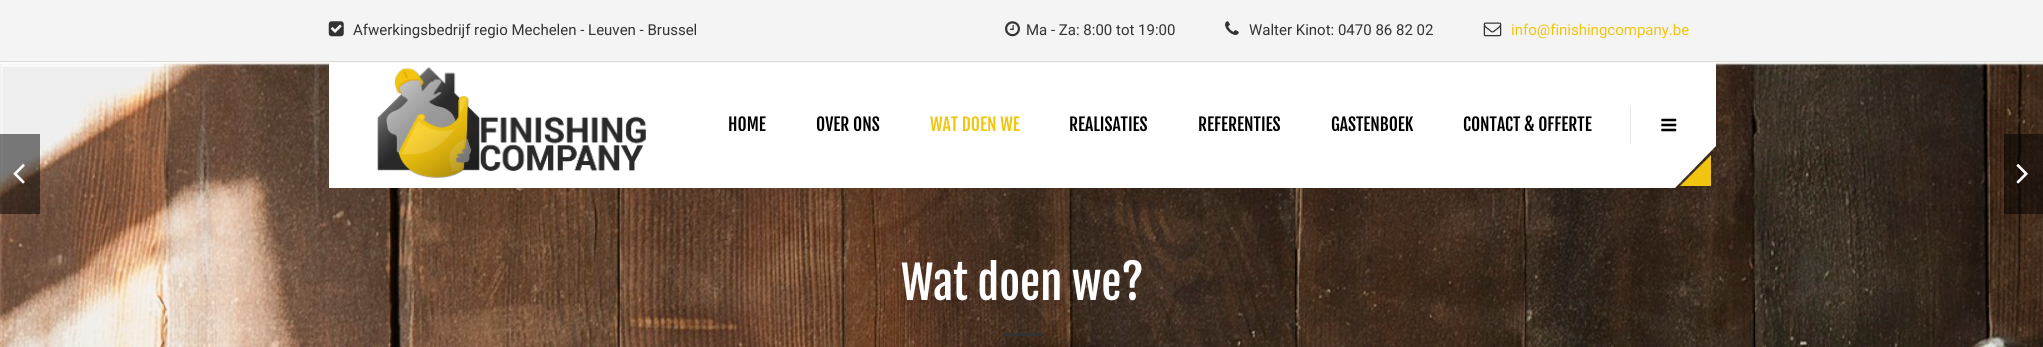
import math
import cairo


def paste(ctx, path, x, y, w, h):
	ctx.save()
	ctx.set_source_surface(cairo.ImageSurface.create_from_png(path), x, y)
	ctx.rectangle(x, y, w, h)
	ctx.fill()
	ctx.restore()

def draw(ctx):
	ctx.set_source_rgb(0.957, 0.957, 0.957)
	ctx.paint()
	ctx.set_source_rgb(0.863, 0.863, 0.863)
	ctx.rectangle(0, 61, 2043, 1)
	ctx.fill()
	paste(ctx, 'media/1.png', 328, 21, 16, 16)
	ctx.select_font_face('Roboto')
	ctx.set_font_size(15)
	ctx.set_source_rgb(0.2, 0.2, 0.2)
	ctx.move_to(353, 35)
	ctx.show_text('Afwerkingsbedrijf regio Mechelen - Leuven - Brussel')
	paste(ctx, 'media/2.png', 1005, 21, 15, 16)
	ctx.move_to(1026, 35)
	ctx.show_text('Ma - Za: 8:00 tot 19:00')
	paste(ctx, 'media/3.png', 1225, 21, 14, 14)
	ctx.move_to(1249, 35)
	ctx.show_text('Walter Kinot: 0470 86 82 02')
	paste(ctx, 'media/4.png', 1483, 22, 19, 15)
	ctx.set_source_rgb(0.945, 0.769, 0.059)
	ctx.move_to(1511, 35)
	ctx.show_text('info@finishingcompany.be')
	paste(ctx, 'media/9.png', 0, 62, 2043, 285)
	ctx.set_source_rgb(1, 1, 1)
	ctx.rectangle(329, 63, 1387, 83)
	ctx.fill()
	ctx.set_source_rgb(0.945, 0.769, 0.059)
	ctx.new_path()
	ctx.move_to(1711, 186)
	ctx.line_to(1680, 186)
	ctx.line_to(1711, 155)
	ctx.close_path()
	ctx.fill()
	ctx.set_source_rgb(1, 1, 1)
	ctx.new_path()
	ctx.move_to(329, 146)
	ctx.line_to(1716, 146)
	ctx.line_to(1675, 188)
	ctx.line_to(329, 188)
	ctx.close_path()
	ctx.fill()
	paste(ctx, 'media/5.png', 377, 66, 269, 113)
	ctx.select_font_face('Fjalla One')
	ctx.set_font_size(17.5)
	ctx.set_source_rgb(0, 0, 0)
	ctx.move_to(728, 131)
	ctx.show_text('HOME')
	ctx.move_to(816, 131)
	ctx.show_text('OVER ONS')
	ctx.set_source_rgb(0.945, 0.769, 0.059)
	ctx.move_to(930, 131)
	ctx.show_text('WAT DOEN WE')
	ctx.set_source_rgb(0, 0, 0)
	for x, y, s in [
		(1069, 131, 'REALISATIES'),
		(1198, 131, 'REFERENTIES'),
		(1331, 131, 'GASTENBOEK'),
		(1463, 131, 'CONTACT & OFFERTE'),
	]:
		ctx.move_to(x, y)
		ctx.show_text(s)
	ctx.set_source_rgb(0.902, 0.902, 0.902)
	ctx.rectangle(1630, 106, 1, 38)
	ctx.fill()
	paste(ctx, 'media/6.png', 1661, 118, 16, 14)
	ctx.set_source_rgba(0, 0, 0, 0.5)
	ctx.rectangle(0, 134, 40, 80)
	ctx.fill()
	paste(ctx, 'media/7.png', 13, 164, 12, 20)
	ctx.rectangle(2004, 134, 39, 80)
	ctx.fill()
	paste(ctx, 'media/8.png', 2016, 164, 12, 20)
	ctx.set_font_size(45)
	ctx.set_source_rgb(1, 1, 1)
	ctx.move_to(901, 300)
	ctx.show_text('Wat doen we?')
	ctx.set_source_rgb(0.2, 0.2, 0.2)
	ctx.rectangle(1004, 333, 37, 3)
	ctx.fill()


surface = cairo.ImageSurface(cairo.FORMAT_RGB24, 2043, 347)
ctx = cairo.Context(surface)
options = cairo.FontOptions()
options.set_hint_metrics(cairo.HINT_METRICS_OFF)
options.set_hint_style(cairo.HINT_STYLE_NONE)
ctx.set_font_options(options)
ctx.set_miter_limit(4)
draw(ctx)
surface.write_to_png('image.png')
